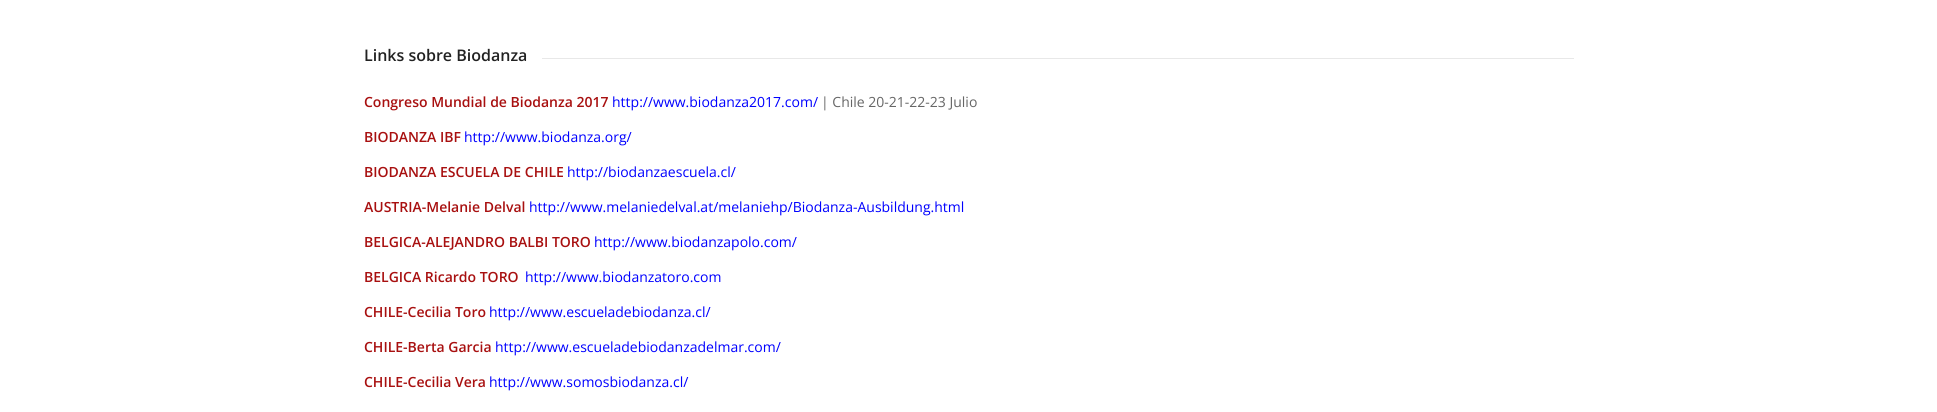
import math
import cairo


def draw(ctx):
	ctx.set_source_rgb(1, 1, 1)
	ctx.paint()
	ctx.select_font_face('Open Sans SemiBold')
	ctx.set_font_size(16)
	ctx.set_source_rgb(0.133, 0.133, 0.133)
	ctx.move_to(364, 61)
	ctx.show_text('Links sobre Biodanza')
	ctx.set_source_rgb(0.91, 0.91, 0.91)
	ctx.rectangle(542, 58, 1032, 1)
	ctx.fill()
	ctx.set_font_size(14)
	ctx.set_source_rgb(0.659, 0.063, 0.063)
	ctx.move_to(364, 107)
	ctx.show_text('Congreso Mundial de Biodanza 2017')
	ctx.select_font_face('Open Sans')
	ctx.set_source_rgb(0, 0, 1)
	ctx.move_to(612, 107)
	ctx.show_text('http://www.biodanza2017.com/')
	ctx.set_source_rgb(0.4, 0.4, 0.4)
	ctx.move_to(821, 107)
	ctx.show_text('| Chile 20-21-22-23 Julio')
	ctx.select_font_face('Open Sans SemiBold')
	ctx.set_source_rgb(0.659, 0.063, 0.063)
	ctx.move_to(364, 142)
	ctx.show_text('BIODANZA IBF')
	ctx.select_font_face('Open Sans')
	ctx.set_source_rgb(0, 0, 1)
	ctx.move_to(464, 142)
	ctx.show_text('http://www.biodanza.org/')
	ctx.select_font_face('Open Sans SemiBold')
	ctx.set_source_rgb(0.659, 0.063, 0.063)
	ctx.move_to(364, 177)
	ctx.show_text('BIODANZA ESCUELA DE CHILE')
	ctx.select_font_face('Open Sans')
	ctx.set_source_rgb(0, 0, 1)
	ctx.move_to(567, 177)
	ctx.show_text('http://biodanzaescuela.cl/')
	ctx.select_font_face('Open Sans SemiBold')
	ctx.set_source_rgb(0.659, 0.063, 0.063)
	ctx.move_to(364, 212)
	ctx.show_text('AUSTRIA-Melanie Delval')
	ctx.select_font_face('Open Sans')
	ctx.set_source_rgb(0, 0, 1)
	ctx.move_to(529, 212)
	ctx.show_text('http://www.melaniedelval.at/melaniehp/Biodanza-Ausbildung.html')
	ctx.select_font_face('Open Sans SemiBold')
	ctx.set_source_rgb(0.659, 0.063, 0.063)
	ctx.move_to(364, 247)
	ctx.show_text('BELGICA-ALEJANDRO BALBI TORO')
	ctx.select_font_face('Open Sans')
	ctx.set_source_rgb(0, 0, 1)
	ctx.move_to(594, 247)
	ctx.show_text('http://www.biodanzapolo.com/')
	ctx.select_font_face('Open Sans SemiBold')
	ctx.set_source_rgb(0.659, 0.063, 0.063)
	ctx.move_to(364, 282)
	ctx.show_text('BELGICA Ricardo TORO')
	ctx.select_font_face('Open Sans')
	ctx.set_source_rgb(0, 0, 1)
	ctx.move_to(525, 282)
	ctx.show_text('http://www.biodanzatoro.com')
	ctx.select_font_face('Open Sans SemiBold')
	ctx.set_source_rgb(0.659, 0.063, 0.063)
	ctx.move_to(364, 317)
	ctx.show_text('CHILE-Cecilia Toro')
	ctx.select_font_face('Open Sans')
	ctx.set_source_rgb(0, 0, 1)
	ctx.move_to(489, 317)
	ctx.show_text('http://www.escueladebiodanza.cl/')
	ctx.select_font_face('Open Sans SemiBold')
	ctx.set_source_rgb(0.659, 0.063, 0.063)
	ctx.move_to(364, 352)
	ctx.show_text('CHILE-Berta Garcia')
	ctx.select_font_face('Open Sans')
	ctx.set_source_rgb(0, 0, 1)
	ctx.move_to(495, 352)
	ctx.show_text('http://www.escueladebiodanzadelmar.com/')
	ctx.select_font_face('Open Sans SemiBold')
	ctx.set_source_rgb(0.659, 0.063, 0.063)
	ctx.move_to(364, 387)
	ctx.show_text('CHILE-Cecilia Vera')
	ctx.select_font_face('Open Sans')
	ctx.set_source_rgb(0, 0, 1)
	ctx.move_to(489, 387)
	ctx.show_text('http://www.somosbiodanza.cl/')


surface = cairo.ImageSurface(cairo.FORMAT_RGB24, 1937, 412)
ctx = cairo.Context(surface)
options = cairo.FontOptions()
options.set_hint_metrics(cairo.HINT_METRICS_OFF)
options.set_hint_style(cairo.HINT_STYLE_NONE)
ctx.set_font_options(options)
ctx.set_miter_limit(4)
draw(ctx)
surface.write_to_png('image.png')
